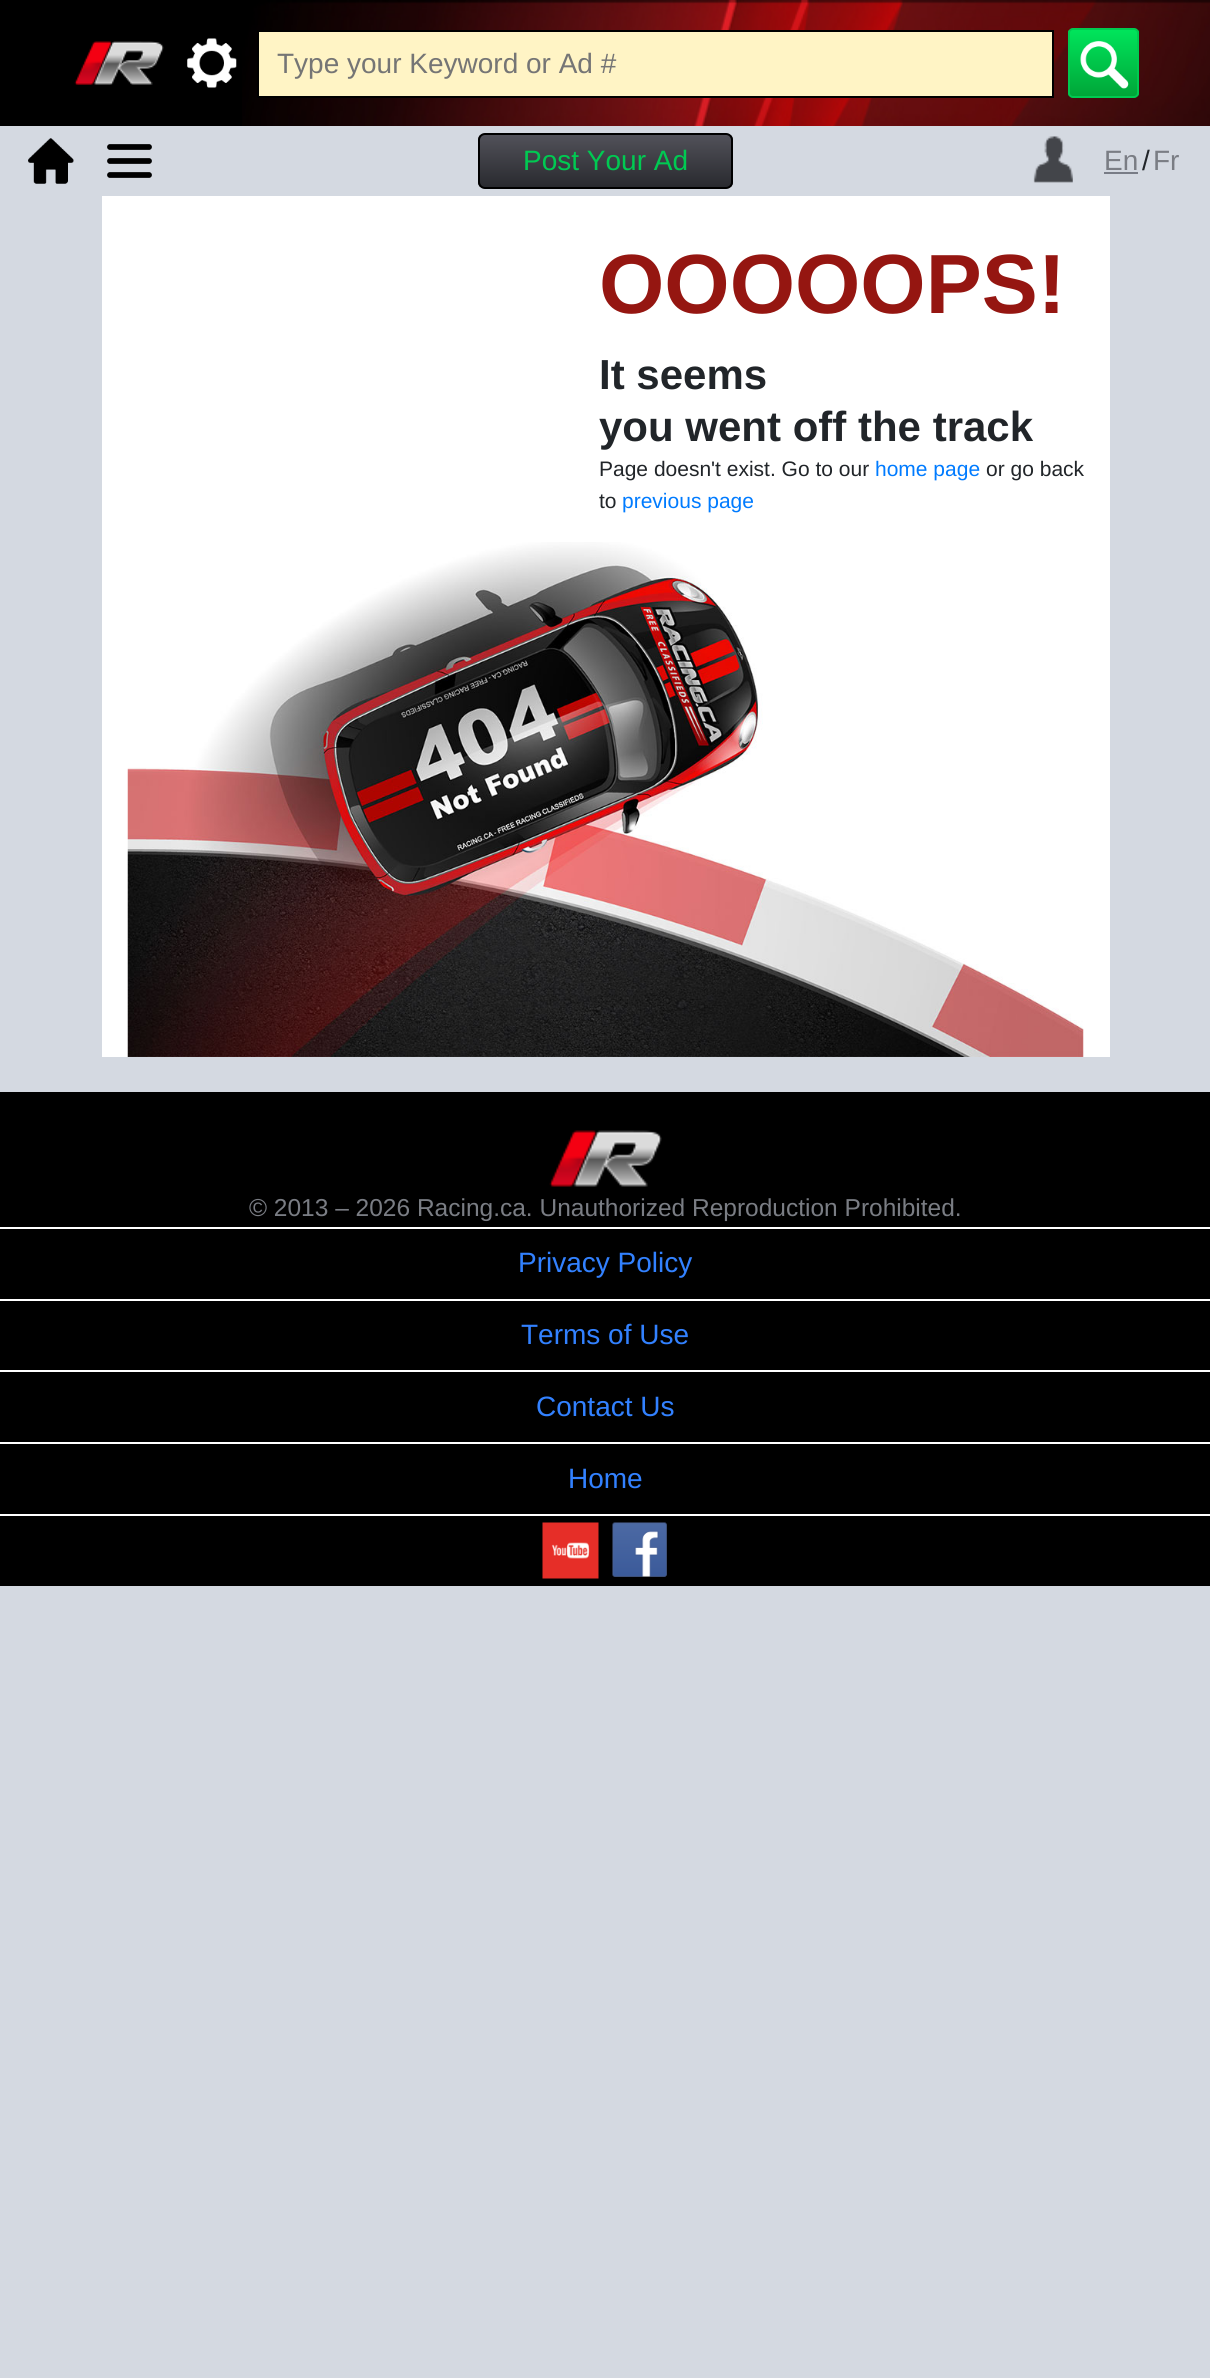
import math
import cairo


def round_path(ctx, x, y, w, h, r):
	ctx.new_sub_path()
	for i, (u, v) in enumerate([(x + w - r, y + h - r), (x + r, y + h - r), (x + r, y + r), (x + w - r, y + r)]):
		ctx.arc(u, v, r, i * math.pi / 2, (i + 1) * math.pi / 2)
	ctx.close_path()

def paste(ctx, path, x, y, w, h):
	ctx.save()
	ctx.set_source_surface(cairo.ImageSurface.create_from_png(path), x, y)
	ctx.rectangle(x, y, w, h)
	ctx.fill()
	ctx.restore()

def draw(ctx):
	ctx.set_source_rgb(0.831, 0.851, 0.882)
	ctx.paint()
	ctx.set_source_rgb(0, 0, 0)
	ctx.rectangle(0, 0, 242, 126)
	ctx.fill()
	paste(ctx, 'media/1.png', 242, 0, 968, 126)
	paste(ctx, 'media/2.png', 74, 41, 90, 44)
	paste(ctx, 'media/3.png', 187, 38, 50, 50)
	ctx.set_source_rgb(1, 0.957, 0.773)
	ctx.rectangle(258, 31, 795, 66)
	ctx.fill_preserve()
	ctx.set_source_rgb(0, 0, 0)
	ctx.stroke()
	ctx.select_font_face('Liberation Sans')
	ctx.set_font_size(28)
	ctx.set_source_rgb(0.459, 0.459, 0.459)
	ctx.move_to(277, 73)
	ctx.show_text('Type your Keyword or Ad #')
	ctx.save()
	round_path(ctx, 1068, 28, 71, 70, 5)
	ctx.clip()
	gradient = cairo.LinearGradient(1103, 30, 1103, 96)
	gradient.add_color_stop_rgba(0, 0, 0.894, 0.357, 1)
	gradient.add_color_stop_rgba(1, 0, 0.651, 0.22, 1)
	ctx.set_source(gradient)
	ctx.rectangle(1068, 30, 71, 66)
	ctx.fill()
	ctx.restore()
	round_path(ctx, 1069, 29, 69, 68, 4)
	ctx.set_source_rgb(0, 0.792, 0.314)
	ctx.stroke()
	paste(ctx, 'media/4.png', 1080, 41, 49, 48)
	paste(ctx, 'media/5.png', 28, 138, 46, 46)
	ctx.new_path()
	ctx.move_to(110, 147)
	ctx.line_to(149, 147)
	ctx.move_to(110, 161)
	ctx.line_to(149, 161)
	ctx.move_to(110, 175)
	ctx.line_to(149, 175)
	ctx.set_source_rgb(0, 0, 0)
	ctx.set_line_width(5.8)
	ctx.set_line_cap(cairo.LINE_CAP_ROUND)
	ctx.stroke()
	ctx.save()
	round_path(ctx, 478, 133, 255, 56, 7)
	ctx.clip()
	gradient = cairo.LinearGradient(606, 135, 606, 187)
	gradient.add_color_stop_rgba(0, 0.318, 0.318, 0.349, 1)
	gradient.add_color_stop_rgba(1, 0.161, 0.165, 0.184, 1)
	ctx.set_source(gradient)
	ctx.rectangle(478, 135, 255, 52)
	ctx.fill()
	ctx.restore()
	round_path(ctx, 479, 134, 253, 54, 6)
	ctx.set_line_width(2)
	ctx.set_line_cap(cairo.LINE_CAP_BUTT)
	ctx.stroke()
	ctx.set_source_rgb(0, 0.792, 0.322)
	ctx.move_to(523, 170)
	ctx.show_text('Post Your Ad')
	paste(ctx, 'media/6.png', 1033, 136, 40, 47)
	ctx.set_source_rgb(0.478, 0.49, 0.518)
	ctx.move_to(1104, 170)
	ctx.show_text('En')
	ctx.set_source_rgb(0.471, 0.486, 0.525)
	ctx.rectangle(1104, 172, 34, 2)
	ctx.fill()
	ctx.set_source_rgb(0.129, 0.145, 0.161)
	ctx.move_to(1142, 170)
	ctx.show_text('/')
	ctx.set_source_rgb(0.478, 0.49, 0.518)
	ctx.move_to(1153, 170)
	ctx.show_text('Fr')
	ctx.set_source_rgb(1, 1, 1)
	ctx.rectangle(102, 196, 1008, 861)
	ctx.fill()
	ctx.select_font_face('Liberation Sans', cairo.FONT_SLANT_NORMAL, cairo.FONT_WEIGHT_BOLD)
	ctx.set_font_size(84)
	ctx.set_source_rgb(0.584, 0.086, 0.067)
	ctx.move_to(599, 313)
	ctx.show_text('OOOOOPS!')
	ctx.set_font_size(42)
	ctx.set_source_rgb(0.129, 0.145, 0.161)
	ctx.move_to(599, 389)
	ctx.show_text('It seems')
	ctx.move_to(599, 441)
	ctx.show_text('you went off the track')
	ctx.select_font_face('Liberation Sans')
	ctx.set_font_size(21)
	ctx.move_to(599, 476)
	ctx.show_text('Page doesn\'t exist. Go to our')
	ctx.set_source_rgb(0, 0.482, 1)
	ctx.move_to(875, 476)
	ctx.show_text('home page')
	ctx.set_source_rgb(0.129, 0.145, 0.161)
	ctx.move_to(986, 476)
	ctx.show_text('or go back')
	ctx.move_to(599, 508)
	ctx.show_text('to')
	ctx.set_source_rgb(0, 0.482, 1)
	ctx.move_to(622, 508)
	ctx.show_text('previous page')
	paste(ctx, 'media/7.png', 127, 542, 957, 515)
	ctx.set_source_rgb(0, 0, 0)
	ctx.rectangle(0, 1092, 1210, 494)
	ctx.fill()
	paste(ctx, 'media/8.png', 549, 1130, 113, 57)
	ctx.set_source_rgb(1, 1, 1)
	ctx.rectangle(0, 1514, 1210, 2)
	ctx.fill()
	ctx.set_font_size(24.5)
	ctx.set_source_rgb(0.478, 0.49, 0.518)
	ctx.move_to(249, 1216)
	ctx.show_text('© 2013 – 2026 Racing.ca. Unauthorized Reproduction Prohibited.')
	ctx.set_source_rgb(1, 1, 1)
	ctx.rectangle(0, 1227, 1210, 2)
	ctx.fill()
	ctx.set_font_size(28)
	ctx.set_source_rgb(0.196, 0.506, 1)
	ctx.move_to(518, 1272)
	ctx.show_text('Privacy Policy')
	ctx.set_source_rgb(1, 1, 1)
	ctx.rectangle(0, 1299, 1210, 2)
	ctx.fill()
	ctx.set_source_rgb(0.196, 0.506, 1)
	ctx.move_to(521, 1344)
	ctx.show_text('Terms of Use')
	ctx.set_source_rgb(1, 1, 1)
	ctx.rectangle(0, 1370, 1210, 2)
	ctx.fill()
	ctx.set_source_rgb(0.196, 0.506, 1)
	ctx.move_to(536, 1416)
	ctx.show_text('Contact Us')
	ctx.set_source_rgb(1, 1, 1)
	ctx.rectangle(0, 1442, 1210, 2)
	ctx.fill()
	ctx.set_source_rgb(0.196, 0.506, 1)
	ctx.move_to(568, 1488)
	ctx.show_text('Home')
	paste(ctx, 'media/9.png', 542, 1522, 57, 57)
	paste(ctx, 'media/10.png', 612, 1522, 55, 55)


surface = cairo.ImageSurface(cairo.FORMAT_RGB24, 1210, 2378)
ctx = cairo.Context(surface)
options = cairo.FontOptions()
options.set_hint_metrics(cairo.HINT_METRICS_OFF)
options.set_hint_style(cairo.HINT_STYLE_NONE)
ctx.set_font_options(options)
ctx.set_miter_limit(4)
draw(ctx)
surface.write_to_png('image.png')
